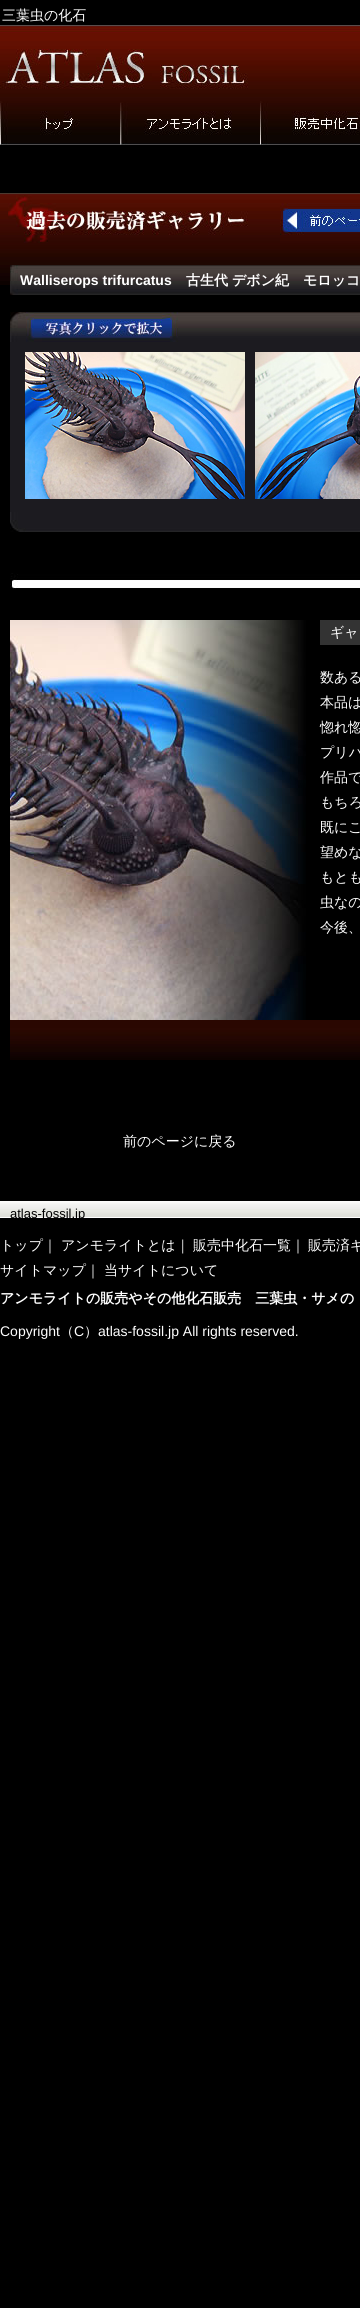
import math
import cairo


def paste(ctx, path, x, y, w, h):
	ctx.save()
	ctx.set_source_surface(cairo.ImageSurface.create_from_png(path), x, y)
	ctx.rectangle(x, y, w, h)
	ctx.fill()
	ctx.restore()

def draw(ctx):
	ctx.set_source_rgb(0, 0, 0)
	ctx.paint()
	ctx.select_font_face('WenQuanYi Zen Hei Medium')
	ctx.set_font_size(14)
	ctx.set_source_rgb(1, 1, 1)
	ctx.move_to(2, 20)
	ctx.show_text('三葉虫の化石')
	paste(ctx, 'media/1.png', 0, 25, 360, 77)
	paste(ctx, 'media/2.png', 0, 49, 248, 40)
	paste(ctx, 'media/3.png', 0, 101, 120, 44)
	paste(ctx, 'media/4.png', 120, 102, 140, 43)
	paste(ctx, 'media/5.png', 260, 101, 100, 44)
	paste(ctx, 'media/6.png', 0, 193, 360, 92)
	paste(ctx, 'media/7.png', 0, 195, 280, 48)
	paste(ctx, 'media/8.png', 280, 196, 80, 39)
	paste(ctx, 'media/9.png', 10, 265, 350, 30)
	ctx.select_font_face('Liberation Sans', cairo.FONT_SLANT_NORMAL, cairo.FONT_WEIGHT_BOLD)
	ctx.move_to(20, 285)
	ctx.show_text('Walliserops trifurcatus')
	ctx.select_font_face('WenQuanYi Zen Hei', cairo.FONT_SLANT_NORMAL, cairo.FONT_WEIGHT_BOLD)
	ctx.move_to(186, 285)
	ctx.show_text('古生代')
	ctx.move_to(232, 285)
	ctx.show_text('デボン紀　モロッコ')
	ctx.set_source_rgb(0.11, 0.106, 0.125)
	ctx.rectangle(10, 342, 350, 170)
	ctx.fill()
	paste(ctx, 'media/10.png', 10, 312, 350, 30)
	paste(ctx, 'media/11.png', 25, 352, 220, 147)
	paste(ctx, 'media/12.png', 255, 352, 105, 147)
	paste(ctx, 'media/13.png', 10, 512, 350, 20)
	paste(ctx, 'media/14.png', 10, 573, 350, 16)
	paste(ctx, 'media/15.png', 10, 620, 296, 400)
	ctx.set_source_rgb(0.2, 0.2, 0.2)
	ctx.rectangle(320, 620, 40, 25)
	ctx.fill()
	ctx.select_font_face('WenQuanYi Zen Hei Medium')
	ctx.set_source_rgb(1, 1, 1)
	for x, y, s in [
		(330, 637, 'ギャ'),
		(320, 682, '数ある'),
		(320, 707, '本品は'),
		(320, 732, '惚れ惚'),
		(320, 757, 'プリパ'),
		(320, 782, '作品で'),
		(320, 807, 'もちろ'),
		(320, 832, '既にこ'),
		(320, 857, '望めな'),
		(320, 882, 'もとも'),
		(320, 907, '虫なの'),
		(320, 932, '今後、'),
	]:
		ctx.move_to(x, y)
		ctx.show_text(s)
	paste(ctx, 'media/16.png', 10, 1020, 350, 40)
	ctx.move_to(123, 1146)
	ctx.show_text('前のページに戻る')
	paste(ctx, 'media/17.png', 0, 1201, 360, 17)
	ctx.select_font_face('Liberation Sans')
	ctx.set_font_size(13)
	ctx.set_source_rgb(0, 0, 0)
	ctx.move_to(10, 1218)
	ctx.show_text('atlas-fossil.jp')
	ctx.select_font_face('WenQuanYi Zen Hei Medium')
	ctx.set_font_size(14)
	ctx.set_source_rgb(1, 1, 1)
	for x, y, s in [
		(0, 1250, 'トップ｜'),
		(61, 1250, 'アンモライトとは｜'),
		(193, 1250, '販売中化石一覧｜'),
		(308, 1250, '販売済ギ'),
		(0, 1275, 'サイトマップ｜'),
		(104, 1275, '当サイトについて'),
	]:
		ctx.move_to(x, y)
		ctx.show_text(s)
	ctx.select_font_face('WenQuanYi Zen Hei', cairo.FONT_SLANT_NORMAL, cairo.FONT_WEIGHT_BOLD)
	ctx.move_to(0, 1303)
	ctx.show_text('アンモライトの販売やその他化石販売　三葉虫・サメの')
	ctx.select_font_face('Liberation Sans')
	ctx.move_to(0, 1336)
	ctx.show_text('Copyright')
	ctx.select_font_face('WenQuanYi Zen Hei Medium')
	ctx.move_to(60, 1336)
	ctx.show_text('（')
	ctx.select_font_face('Liberation Sans')
	ctx.move_to(74, 1336)
	ctx.show_text('C')
	ctx.select_font_face('WenQuanYi Zen Hei Medium')
	ctx.move_to(84, 1336)
	ctx.show_text('）')
	ctx.select_font_face('Liberation Sans')
	ctx.move_to(98, 1336)
	ctx.show_text('atlas-fossil.jp All rights reserved.')


surface = cairo.ImageSurface(cairo.FORMAT_RGB24, 360, 2308)
ctx = cairo.Context(surface)
options = cairo.FontOptions()
options.set_hint_metrics(cairo.HINT_METRICS_OFF)
options.set_hint_style(cairo.HINT_STYLE_NONE)
ctx.set_font_options(options)
ctx.set_miter_limit(4)
draw(ctx)
surface.write_to_png('image.png')
